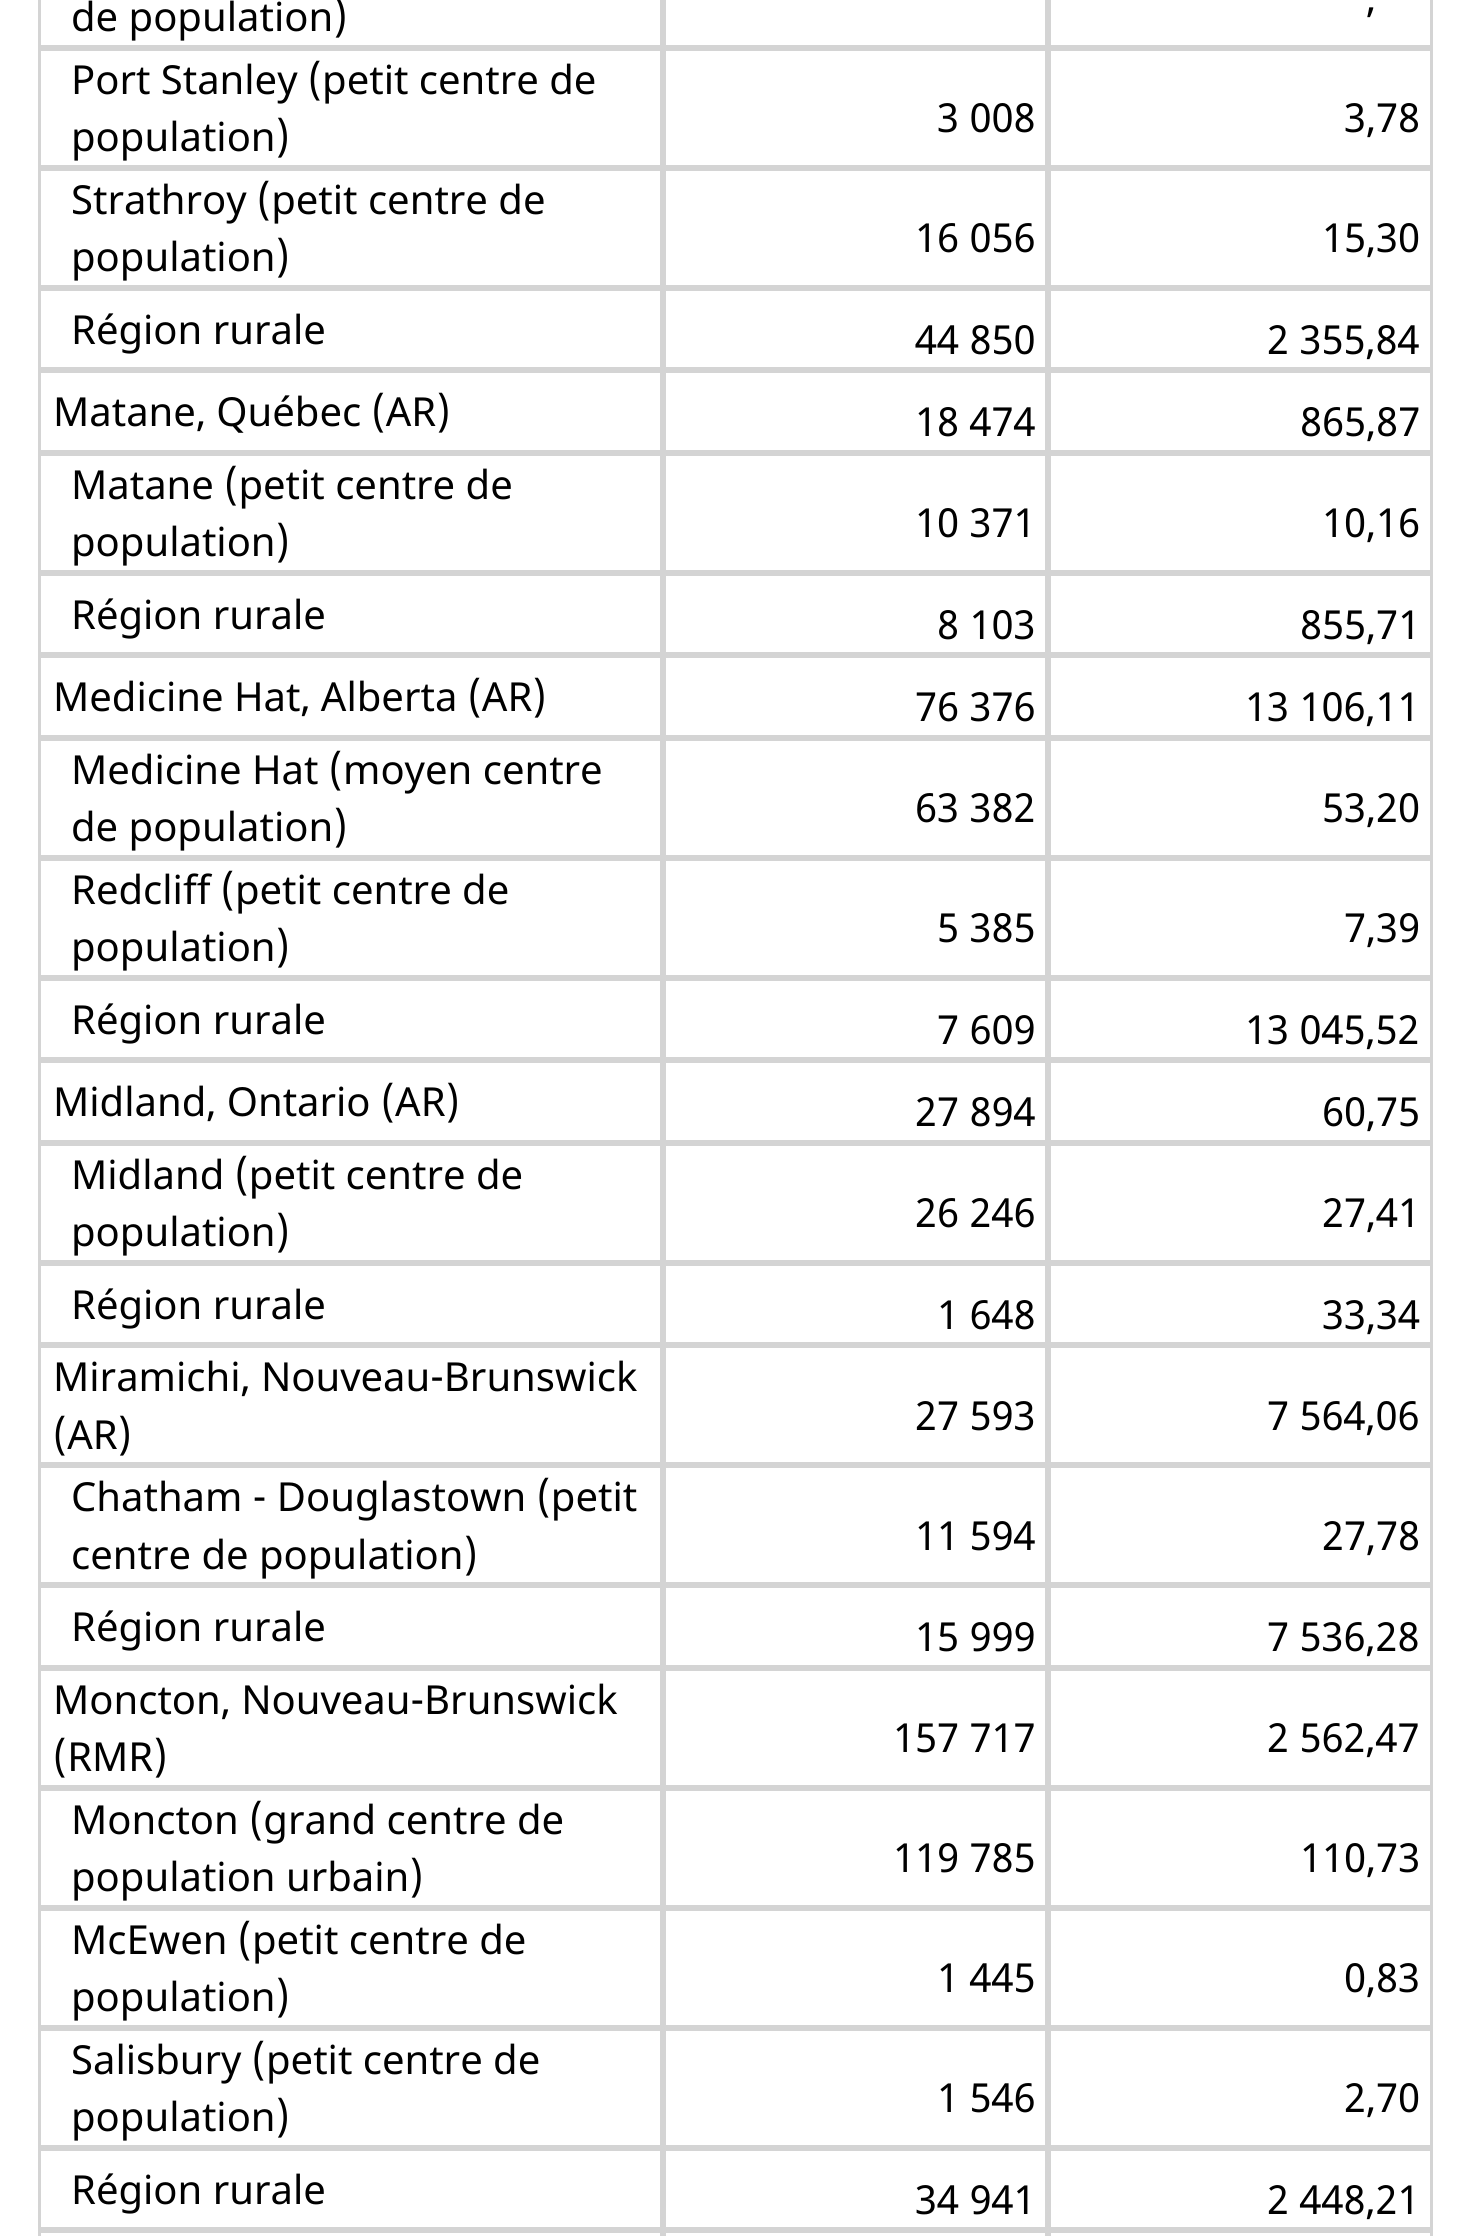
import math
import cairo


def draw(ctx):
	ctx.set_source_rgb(1, 1, 1)
	ctx.paint()
	ctx.rectangle(39.5, -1.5, 622, 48)
	ctx.set_source_rgb(0.831, 0.831, 0.831)
	ctx.set_line_width(3)
	ctx.stroke()
	ctx.select_font_face('Noto Sans')
	ctx.set_font_size(40)
	ctx.set_source_rgb(0, 0, 0)
	ctx.move_to(71, 31)
	ctx.show_text('de population)')
	ctx.rectangle(664.5, -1.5, 382, 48)
	ctx.set_source_rgb(0.831, 0.831, 0.831)
	ctx.stroke()
	ctx.rectangle(1049.5, -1.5, 382, 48)
	ctx.stroke()
	ctx.set_source_rgb(0, 0, 0)
	ctx.move_to(1366, 12)
	ctx.show_text(',')
	ctx.rectangle(39.5, 49.5, 622, 117)
	ctx.set_source_rgb(0.831, 0.831, 0.831)
	ctx.stroke()
	ctx.set_source_rgb(0, 0, 0)
	ctx.move_to(71, 94)
	ctx.show_text('Port Stanley (petit centre de')
	ctx.move_to(71, 151)
	ctx.show_text('population)')
	ctx.rectangle(664.5, 49.5, 382, 117)
	ctx.set_source_rgb(0.831, 0.831, 0.831)
	ctx.stroke()
	ctx.set_source_rgb(0, 0, 0)
	ctx.move_to(937, 132)
	ctx.show_text('3 008')
	ctx.rectangle(1049.5, 49.5, 382, 117)
	ctx.set_source_rgb(0.831, 0.831, 0.831)
	ctx.stroke()
	ctx.set_source_rgb(0, 0, 0)
	ctx.move_to(1344, 132)
	ctx.show_text('3,78')
	ctx.rectangle(39.5, 169.5, 622, 117)
	ctx.set_source_rgb(0.831, 0.831, 0.831)
	ctx.stroke()
	ctx.set_source_rgb(0, 0, 0)
	ctx.move_to(71, 214)
	ctx.show_text('Strathroy (petit centre de')
	ctx.move_to(71, 271)
	ctx.show_text('population)')
	ctx.rectangle(664.5, 169.5, 382, 117)
	ctx.set_source_rgb(0.831, 0.831, 0.831)
	ctx.stroke()
	ctx.set_source_rgb(0, 0, 0)
	ctx.move_to(915, 252)
	ctx.show_text('16 056')
	ctx.rectangle(1049.5, 169.5, 382, 117)
	ctx.set_source_rgb(0.831, 0.831, 0.831)
	ctx.stroke()
	ctx.set_source_rgb(0, 0, 0)
	ctx.move_to(1322, 252)
	ctx.show_text('15,30')
	ctx.rectangle(39.5, 289.5, 622, 79)
	ctx.set_source_rgb(0.831, 0.831, 0.831)
	ctx.stroke()
	ctx.set_source_rgb(0, 0, 0)
	ctx.move_to(71, 344)
	ctx.show_text('Région rurale')
	ctx.rectangle(664.5, 289.5, 382, 79)
	ctx.set_source_rgb(0.831, 0.831, 0.831)
	ctx.stroke()
	ctx.set_source_rgb(0, 0, 0)
	ctx.move_to(915, 354)
	ctx.show_text('44 850')
	ctx.rectangle(1049.5, 289.5, 382, 79)
	ctx.set_source_rgb(0.831, 0.831, 0.831)
	ctx.stroke()
	ctx.set_source_rgb(0, 0, 0)
	ctx.move_to(1267, 354)
	ctx.show_text('2 355,84')
	ctx.rectangle(39.5, 371.5, 622, 80)
	ctx.set_source_rgb(0.831, 0.831, 0.831)
	ctx.stroke()
	ctx.set_source_rgb(0, 0, 0)
	ctx.move_to(53, 426)
	ctx.show_text('Matane, Québec (AR)')
	ctx.rectangle(664.5, 371.5, 382, 80)
	ctx.set_source_rgb(0.831, 0.831, 0.831)
	ctx.stroke()
	ctx.set_source_rgb(0, 0, 0)
	ctx.move_to(915, 436)
	ctx.show_text('18 474')
	ctx.rectangle(1049.5, 371.5, 382, 80)
	ctx.set_source_rgb(0.831, 0.831, 0.831)
	ctx.stroke()
	ctx.set_source_rgb(0, 0, 0)
	ctx.move_to(1300, 436)
	ctx.show_text('865,87')
	ctx.rectangle(39.5, 454.5, 622, 117)
	ctx.set_source_rgb(0.831, 0.831, 0.831)
	ctx.stroke()
	ctx.set_source_rgb(0, 0, 0)
	ctx.move_to(71, 499)
	ctx.show_text('Matane (petit centre de')
	ctx.move_to(71, 556)
	ctx.show_text('population)')
	ctx.rectangle(664.5, 454.5, 382, 117)
	ctx.set_source_rgb(0.831, 0.831, 0.831)
	ctx.stroke()
	ctx.set_source_rgb(0, 0, 0)
	ctx.move_to(915, 537)
	ctx.show_text('10 371')
	ctx.rectangle(1049.5, 454.5, 382, 117)
	ctx.set_source_rgb(0.831, 0.831, 0.831)
	ctx.stroke()
	ctx.set_source_rgb(0, 0, 0)
	ctx.move_to(1322, 537)
	ctx.show_text('10,16')
	ctx.rectangle(39.5, 574.5, 622, 79)
	ctx.set_source_rgb(0.831, 0.831, 0.831)
	ctx.stroke()
	ctx.set_source_rgb(0, 0, 0)
	ctx.move_to(71, 629)
	ctx.show_text('Région rurale')
	ctx.rectangle(664.5, 574.5, 382, 79)
	ctx.set_source_rgb(0.831, 0.831, 0.831)
	ctx.stroke()
	ctx.set_source_rgb(0, 0, 0)
	ctx.move_to(937, 639)
	ctx.show_text('8 103')
	ctx.rectangle(1049.5, 574.5, 382, 79)
	ctx.set_source_rgb(0.831, 0.831, 0.831)
	ctx.stroke()
	ctx.set_source_rgb(0, 0, 0)
	ctx.move_to(1300, 639)
	ctx.show_text('855,71')
	ctx.rectangle(39.5, 656.5, 622, 80)
	ctx.set_source_rgb(0.831, 0.831, 0.831)
	ctx.stroke()
	ctx.set_source_rgb(0, 0, 0)
	ctx.move_to(53, 711)
	ctx.show_text('Medicine Hat, Alberta (AR)')
	ctx.rectangle(664.5, 656.5, 382, 80)
	ctx.set_source_rgb(0.831, 0.831, 0.831)
	ctx.stroke()
	ctx.set_source_rgb(0, 0, 0)
	ctx.move_to(915, 721)
	ctx.show_text('76 376')
	ctx.rectangle(1049.5, 656.5, 382, 80)
	ctx.set_source_rgb(0.831, 0.831, 0.831)
	ctx.stroke()
	ctx.set_source_rgb(0, 0, 0)
	ctx.move_to(1245, 721)
	ctx.show_text('13 106,11')
	ctx.rectangle(39.5, 739.5, 622, 117)
	ctx.set_source_rgb(0.831, 0.831, 0.831)
	ctx.stroke()
	ctx.set_source_rgb(0, 0, 0)
	ctx.move_to(71, 784)
	ctx.show_text('Medicine Hat (moyen centre')
	ctx.move_to(71, 841)
	ctx.show_text('de population)')
	ctx.rectangle(664.5, 739.5, 382, 117)
	ctx.set_source_rgb(0.831, 0.831, 0.831)
	ctx.stroke()
	ctx.set_source_rgb(0, 0, 0)
	ctx.move_to(915, 822)
	ctx.show_text('63 382')
	ctx.rectangle(1049.5, 739.5, 382, 117)
	ctx.set_source_rgb(0.831, 0.831, 0.831)
	ctx.stroke()
	ctx.set_source_rgb(0, 0, 0)
	ctx.move_to(1322, 822)
	ctx.show_text('53,20')
	ctx.rectangle(39.5, 859.5, 622, 117)
	ctx.set_source_rgb(0.831, 0.831, 0.831)
	ctx.stroke()
	ctx.set_source_rgb(0, 0, 0)
	ctx.move_to(71, 904)
	ctx.show_text('Redcliff (petit centre de')
	ctx.move_to(71, 961)
	ctx.show_text('population)')
	ctx.rectangle(664.5, 859.5, 382, 117)
	ctx.set_source_rgb(0.831, 0.831, 0.831)
	ctx.stroke()
	ctx.set_source_rgb(0, 0, 0)
	ctx.move_to(937, 942)
	ctx.show_text('5 385')
	ctx.rectangle(1049.5, 859.5, 382, 117)
	ctx.set_source_rgb(0.831, 0.831, 0.831)
	ctx.stroke()
	ctx.set_source_rgb(0, 0, 0)
	ctx.move_to(1344, 942)
	ctx.show_text('7,39')
	ctx.rectangle(39.5, 979.5, 622, 79)
	ctx.set_source_rgb(0.831, 0.831, 0.831)
	ctx.stroke()
	ctx.set_source_rgb(0, 0, 0)
	ctx.move_to(71, 1034)
	ctx.show_text('Région rurale')
	ctx.rectangle(664.5, 979.5, 382, 79)
	ctx.set_source_rgb(0.831, 0.831, 0.831)
	ctx.stroke()
	ctx.set_source_rgb(0, 0, 0)
	ctx.move_to(937, 1044)
	ctx.show_text('7 609')
	ctx.rectangle(1049.5, 979.5, 382, 79)
	ctx.set_source_rgb(0.831, 0.831, 0.831)
	ctx.stroke()
	ctx.set_source_rgb(0, 0, 0)
	ctx.move_to(1245, 1044)
	ctx.show_text('13 045,52')
	ctx.rectangle(39.5, 1061.5, 622, 80)
	ctx.set_source_rgb(0.831, 0.831, 0.831)
	ctx.stroke()
	ctx.set_source_rgb(0, 0, 0)
	ctx.move_to(53, 1116)
	ctx.show_text('Midland, Ontario (AR)')
	ctx.rectangle(664.5, 1061.5, 382, 80)
	ctx.set_source_rgb(0.831, 0.831, 0.831)
	ctx.stroke()
	ctx.set_source_rgb(0, 0, 0)
	ctx.move_to(915, 1126)
	ctx.show_text('27 894')
	ctx.rectangle(1049.5, 1061.5, 382, 80)
	ctx.set_source_rgb(0.831, 0.831, 0.831)
	ctx.stroke()
	ctx.set_source_rgb(0, 0, 0)
	ctx.move_to(1322, 1126)
	ctx.show_text('60,75')
	ctx.rectangle(39.5, 1144.5, 622, 117)
	ctx.set_source_rgb(0.831, 0.831, 0.831)
	ctx.stroke()
	ctx.set_source_rgb(0, 0, 0)
	ctx.move_to(71, 1189)
	ctx.show_text('Midland (petit centre de')
	ctx.move_to(71, 1246)
	ctx.show_text('population)')
	ctx.rectangle(664.5, 1144.5, 382, 117)
	ctx.set_source_rgb(0.831, 0.831, 0.831)
	ctx.stroke()
	ctx.set_source_rgb(0, 0, 0)
	ctx.move_to(915, 1227)
	ctx.show_text('26 246')
	ctx.rectangle(1049.5, 1144.5, 382, 117)
	ctx.set_source_rgb(0.831, 0.831, 0.831)
	ctx.stroke()
	ctx.set_source_rgb(0, 0, 0)
	ctx.move_to(1322, 1227)
	ctx.show_text('27,41')
	ctx.rectangle(39.5, 1264.5, 622, 79)
	ctx.set_source_rgb(0.831, 0.831, 0.831)
	ctx.stroke()
	ctx.set_source_rgb(0, 0, 0)
	ctx.move_to(71, 1319)
	ctx.show_text('Région rurale')
	ctx.rectangle(664.5, 1264.5, 382, 79)
	ctx.set_source_rgb(0.831, 0.831, 0.831)
	ctx.stroke()
	ctx.set_source_rgb(0, 0, 0)
	ctx.move_to(937, 1329)
	ctx.show_text('1 648')
	ctx.rectangle(1049.5, 1264.5, 382, 79)
	ctx.set_source_rgb(0.831, 0.831, 0.831)
	ctx.stroke()
	ctx.set_source_rgb(0, 0, 0)
	ctx.move_to(1322, 1329)
	ctx.show_text('33,34')
	ctx.rectangle(39.5, 1346.5, 622, 117)
	ctx.set_source_rgb(0.831, 0.831, 0.831)
	ctx.stroke()
	ctx.set_source_rgb(0, 0, 0)
	ctx.move_to(53, 1391)
	ctx.show_text('Miramichi, Nouveau-Brunswick')
	ctx.move_to(53, 1449)
	ctx.show_text('(AR)')
	ctx.rectangle(664.5, 1346.5, 382, 117)
	ctx.set_source_rgb(0.831, 0.831, 0.831)
	ctx.stroke()
	ctx.set_source_rgb(0, 0, 0)
	ctx.move_to(915, 1430)
	ctx.show_text('27 593')
	ctx.rectangle(1049.5, 1346.5, 382, 117)
	ctx.set_source_rgb(0.831, 0.831, 0.831)
	ctx.stroke()
	ctx.set_source_rgb(0, 0, 0)
	ctx.move_to(1267, 1430)
	ctx.show_text('7 564,06')
	ctx.rectangle(39.5, 1466.5, 622, 117)
	ctx.set_source_rgb(0.831, 0.831, 0.831)
	ctx.stroke()
	ctx.set_source_rgb(0, 0, 0)
	ctx.move_to(71, 1511)
	ctx.show_text('Chatham - Douglastown (petit')
	ctx.move_to(71, 1569)
	ctx.show_text('centre de population)')
	ctx.rectangle(664.5, 1466.5, 382, 117)
	ctx.set_source_rgb(0.831, 0.831, 0.831)
	ctx.stroke()
	ctx.set_source_rgb(0, 0, 0)
	ctx.move_to(915, 1550)
	ctx.show_text('11 594')
	ctx.rectangle(1049.5, 1466.5, 382, 117)
	ctx.set_source_rgb(0.831, 0.831, 0.831)
	ctx.stroke()
	ctx.set_source_rgb(0, 0, 0)
	ctx.move_to(1322, 1550)
	ctx.show_text('27,78')
	ctx.rectangle(39.5, 1586.5, 622, 80)
	ctx.set_source_rgb(0.831, 0.831, 0.831)
	ctx.stroke()
	ctx.set_source_rgb(0, 0, 0)
	ctx.move_to(71, 1641)
	ctx.show_text('Région rurale')
	ctx.rectangle(664.5, 1586.5, 382, 80)
	ctx.set_source_rgb(0.831, 0.831, 0.831)
	ctx.stroke()
	ctx.set_source_rgb(0, 0, 0)
	ctx.move_to(915, 1651)
	ctx.show_text('15 999')
	ctx.rectangle(1049.5, 1586.5, 382, 80)
	ctx.set_source_rgb(0.831, 0.831, 0.831)
	ctx.stroke()
	ctx.set_source_rgb(0, 0, 0)
	ctx.move_to(1267, 1651)
	ctx.show_text('7 536,28')
	ctx.rectangle(39.5, 1669.5, 622, 117)
	ctx.set_source_rgb(0.831, 0.831, 0.831)
	ctx.stroke()
	ctx.set_source_rgb(0, 0, 0)
	ctx.move_to(53, 1714)
	ctx.show_text('Moncton, Nouveau-Brunswick')
	ctx.move_to(53, 1771)
	ctx.show_text('(RMR)')
	ctx.rectangle(664.5, 1669.5, 382, 117)
	ctx.set_source_rgb(0.831, 0.831, 0.831)
	ctx.stroke()
	ctx.set_source_rgb(0, 0, 0)
	ctx.move_to(893, 1752)
	ctx.show_text('157 717')
	ctx.rectangle(1049.5, 1669.5, 382, 117)
	ctx.set_source_rgb(0.831, 0.831, 0.831)
	ctx.stroke()
	ctx.set_source_rgb(0, 0, 0)
	ctx.move_to(1267, 1752)
	ctx.show_text('2 562,47')
	ctx.rectangle(39.5, 1789.5, 622, 117)
	ctx.set_source_rgb(0.831, 0.831, 0.831)
	ctx.stroke()
	ctx.set_source_rgb(0, 0, 0)
	ctx.move_to(71, 1834)
	ctx.show_text('Moncton (grand centre de')
	ctx.move_to(71, 1891)
	ctx.show_text('population urbain)')
	ctx.rectangle(664.5, 1789.5, 382, 117)
	ctx.set_source_rgb(0.831, 0.831, 0.831)
	ctx.stroke()
	ctx.set_source_rgb(0, 0, 0)
	ctx.move_to(893, 1872)
	ctx.show_text('119 785')
	ctx.rectangle(1049.5, 1789.5, 382, 117)
	ctx.set_source_rgb(0.831, 0.831, 0.831)
	ctx.stroke()
	ctx.set_source_rgb(0, 0, 0)
	ctx.move_to(1300, 1872)
	ctx.show_text('110,73')
	ctx.rectangle(39.5, 1909.5, 622, 117)
	ctx.set_source_rgb(0.831, 0.831, 0.831)
	ctx.stroke()
	ctx.set_source_rgb(0, 0, 0)
	ctx.move_to(71, 1954)
	ctx.show_text('McEwen (petit centre de')
	ctx.move_to(71, 2011)
	ctx.show_text('population)')
	ctx.rectangle(664.5, 1909.5, 382, 117)
	ctx.set_source_rgb(0.831, 0.831, 0.831)
	ctx.stroke()
	ctx.set_source_rgb(0, 0, 0)
	ctx.move_to(937, 1992)
	ctx.show_text('1 445')
	ctx.rectangle(1049.5, 1909.5, 382, 117)
	ctx.set_source_rgb(0.831, 0.831, 0.831)
	ctx.stroke()
	ctx.set_source_rgb(0, 0, 0)
	ctx.move_to(1344, 1992)
	ctx.show_text('0,83')
	ctx.rectangle(39.5, 2029.5, 622, 117)
	ctx.set_source_rgb(0.831, 0.831, 0.831)
	ctx.stroke()
	ctx.set_source_rgb(0, 0, 0)
	ctx.move_to(71, 2074)
	ctx.show_text('Salisbury (petit centre de')
	ctx.move_to(71, 2131)
	ctx.show_text('population)')
	ctx.rectangle(664.5, 2029.5, 382, 117)
	ctx.set_source_rgb(0.831, 0.831, 0.831)
	ctx.stroke()
	ctx.set_source_rgb(0, 0, 0)
	ctx.move_to(937, 2112)
	ctx.show_text('1 546')
	ctx.rectangle(1049.5, 2029.5, 382, 117)
	ctx.set_source_rgb(0.831, 0.831, 0.831)
	ctx.stroke()
	ctx.set_source_rgb(0, 0, 0)
	ctx.move_to(1344, 2112)
	ctx.show_text('2,70')
	ctx.rectangle(39.5, 2149.5, 622, 79)
	ctx.set_source_rgb(0.831, 0.831, 0.831)
	ctx.stroke()
	ctx.set_source_rgb(0, 0, 0)
	ctx.move_to(71, 2204)
	ctx.show_text('Région rurale')
	ctx.rectangle(664.5, 2149.5, 382, 79)
	ctx.set_source_rgb(0.831, 0.831, 0.831)
	ctx.stroke()
	ctx.set_source_rgb(0, 0, 0)
	ctx.move_to(915, 2214)
	ctx.show_text('34 941')
	ctx.rectangle(1049.5, 2149.5, 382, 79)
	ctx.set_source_rgb(0.831, 0.831, 0.831)
	ctx.stroke()
	ctx.set_source_rgb(0, 0, 0)
	ctx.move_to(1267, 2214)
	ctx.show_text('2 448,21')
	ctx.rectangle(39.5, 2231.5, 622, 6)
	ctx.set_source_rgb(0.831, 0.831, 0.831)
	ctx.stroke()
	ctx.rectangle(664.5, 2231.5, 382, 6)
	ctx.stroke()
	ctx.rectangle(1049.5, 2231.5, 382, 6)
	ctx.stroke()


surface = cairo.ImageSurface(cairo.FORMAT_RGB24, 1469, 2236)
ctx = cairo.Context(surface)
options = cairo.FontOptions()
options.set_hint_metrics(cairo.HINT_METRICS_OFF)
options.set_hint_style(cairo.HINT_STYLE_NONE)
ctx.set_font_options(options)
ctx.set_miter_limit(4)
draw(ctx)
surface.write_to_png('image.png')
